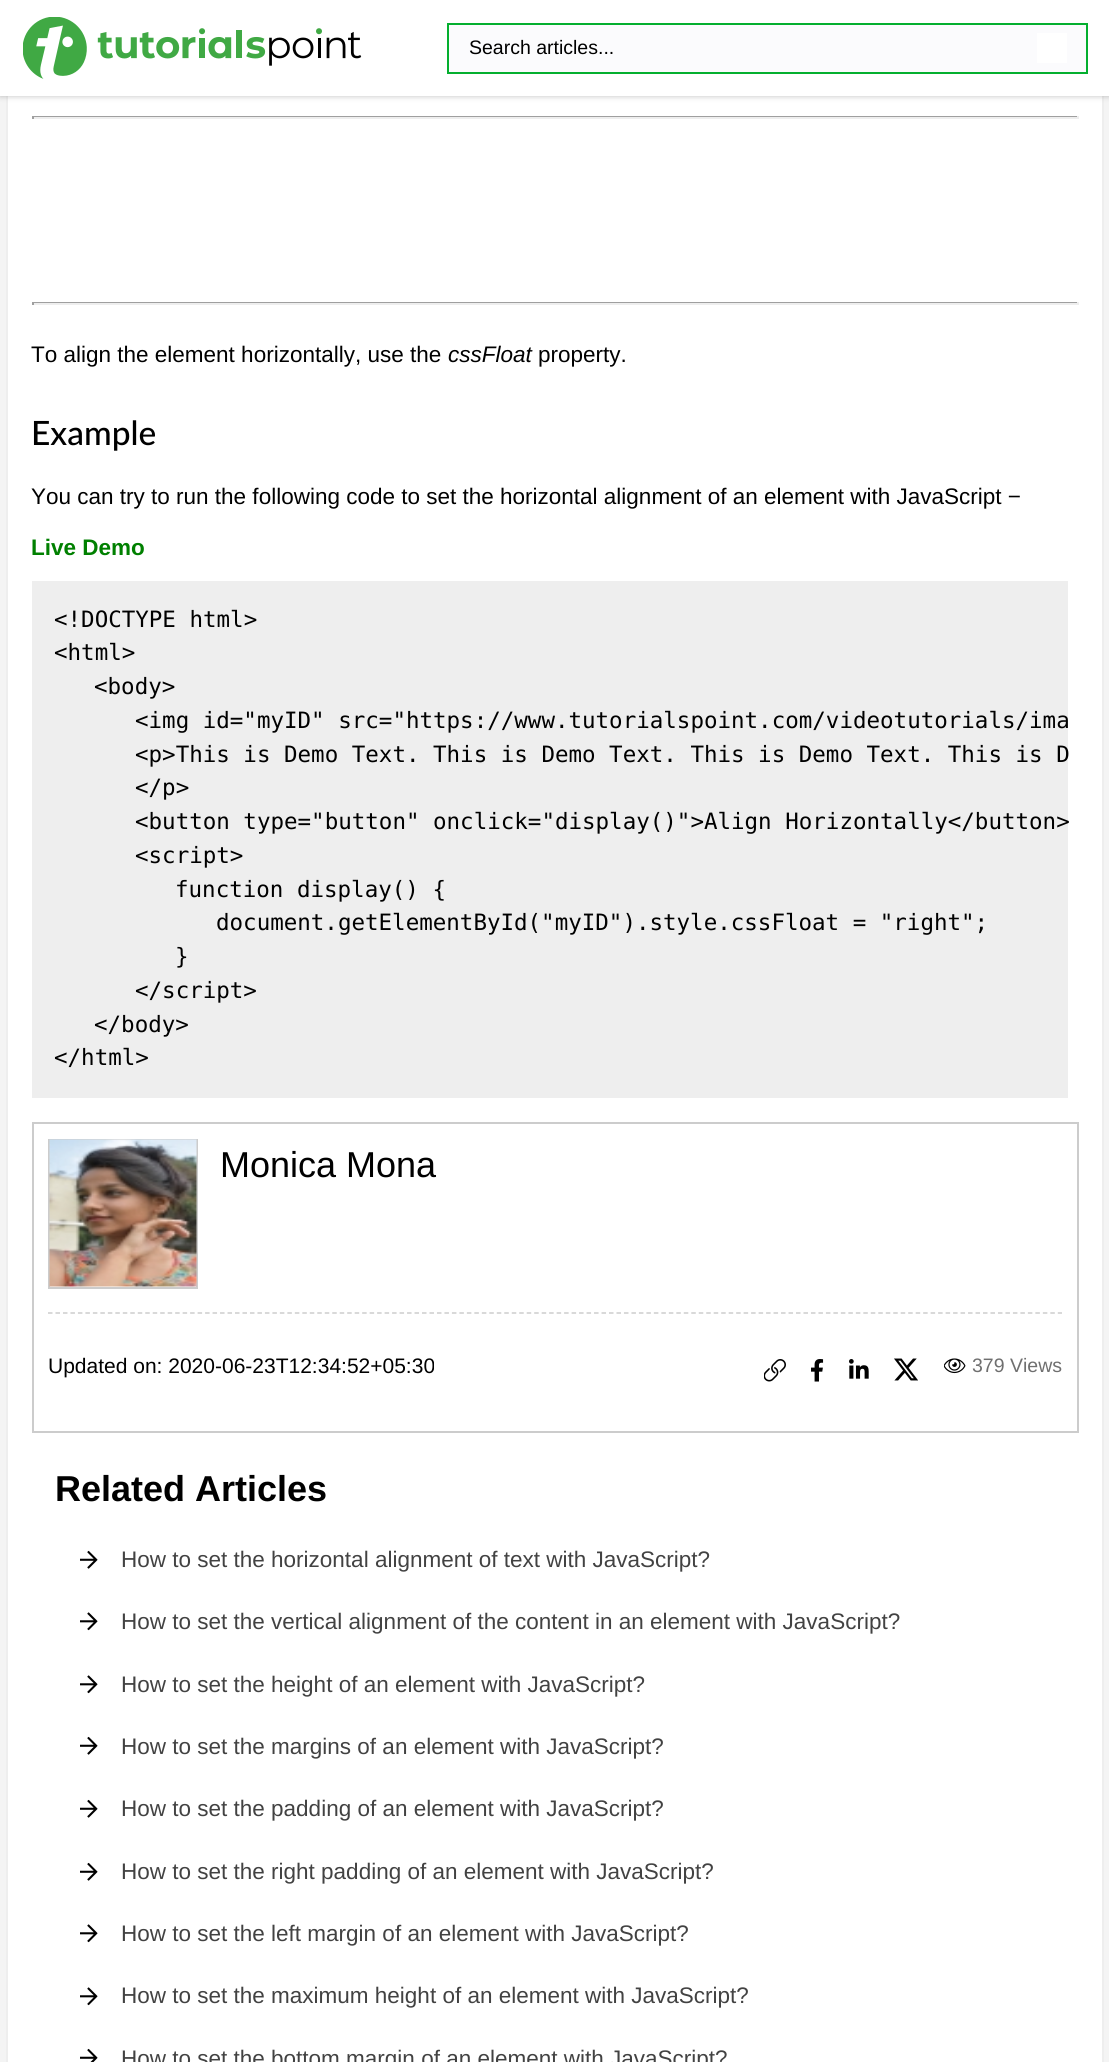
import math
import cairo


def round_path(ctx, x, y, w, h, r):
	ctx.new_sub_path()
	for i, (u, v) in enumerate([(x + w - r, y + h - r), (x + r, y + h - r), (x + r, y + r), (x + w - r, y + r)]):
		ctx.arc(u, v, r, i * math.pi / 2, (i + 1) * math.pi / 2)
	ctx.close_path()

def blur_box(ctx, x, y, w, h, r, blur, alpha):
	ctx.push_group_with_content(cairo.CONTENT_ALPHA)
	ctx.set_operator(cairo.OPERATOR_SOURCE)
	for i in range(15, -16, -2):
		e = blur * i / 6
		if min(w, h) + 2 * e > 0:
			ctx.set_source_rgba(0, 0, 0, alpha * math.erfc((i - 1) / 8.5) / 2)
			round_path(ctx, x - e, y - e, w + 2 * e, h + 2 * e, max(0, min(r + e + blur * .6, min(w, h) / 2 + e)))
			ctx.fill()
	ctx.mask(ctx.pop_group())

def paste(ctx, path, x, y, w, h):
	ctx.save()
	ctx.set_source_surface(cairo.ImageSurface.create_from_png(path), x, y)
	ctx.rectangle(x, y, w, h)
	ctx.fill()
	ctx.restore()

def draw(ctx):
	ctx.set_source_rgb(0.957, 0.957, 0.957)
	ctx.paint()
	ctx.set_source_rgb(1, 1, 1)
	ctx.rectangle(8, 96, 1094, 1966)
	ctx.fill()
	ctx.rectangle(7, -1, 1096, 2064)
	ctx.set_source_rgb(0.933, 0.933, 0.933)
	ctx.stroke()
	ctx.set_source_rgb(0, 0, 0)
	blur_box(ctx, 0, 0, 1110, 96, 0, 3, 0.25)
	ctx.set_source_rgb(1, 1, 1)
	ctx.rectangle(0, 0, 1109, 96)
	ctx.fill()
	paste(ctx, 'media/1.png', 23, 17, 339, 62)
	ctx.set_source_rgb(0.984, 0.984, 0.992)
	ctx.rectangle(448, 24, 639, 49)
	ctx.fill_preserve()
	ctx.set_source_rgb(0.016, 0.686, 0.184)
	ctx.stroke()
	ctx.select_font_face('Liberation Sans')
	ctx.set_font_size(19.5)
	ctx.set_source_rgb(0, 0, 0)
	ctx.move_to(469, 54)
	ctx.show_text('Search articles...')
	ctx.set_source_rgb(1, 1, 1)
	ctx.rectangle(1037, 33, 30, 30)
	ctx.fill()
	ctx.set_source_rgb(0.624, 0.624, 0.624)
	ctx.rectangle(32, 116, 1047, 1)
	ctx.fill()
	ctx.set_source_rgb(0.933, 0.933, 0.933)
	ctx.rectangle(1077, 116, 2, 3)
	ctx.rectangle(32, 117, 1047, 2)
	ctx.fill()
	ctx.set_source_rgb(0.624, 0.624, 0.624)
	ctx.rectangle(32, 116, 2, 3)
	ctx.rectangle(32, 302, 1047, 1)
	ctx.fill()
	ctx.set_source_rgb(0.933, 0.933, 0.933)
	ctx.rectangle(1077, 302, 2, 3)
	ctx.rectangle(32, 303, 1047, 2)
	ctx.fill()
	ctx.set_source_rgb(0.624, 0.624, 0.624)
	ctx.rectangle(32, 302, 2, 3)
	ctx.fill()
	ctx.set_font_size(22.5)
	ctx.set_source_rgb(0, 0, 0)
	ctx.move_to(31, 362)
	ctx.show_text('To align the element horizontally, use the')
	ctx.select_font_face('Liberation Sans', cairo.FONT_SLANT_ITALIC)
	ctx.move_to(448, 362)
	ctx.show_text('cssFloat')
	ctx.select_font_face('Liberation Sans')
	ctx.move_to(538, 362)
	ctx.show_text('property.')
	ctx.select_font_face('Lato Medium')
	ctx.set_font_size(33.5)
	ctx.move_to(31, 445)
	ctx.show_text('Example')
	ctx.select_font_face('Liberation Sans')
	ctx.set_font_size(22.5)
	ctx.move_to(31, 504)
	ctx.show_text('You can try to run the following code to set the horizontal alignment of an element with JavaScript −')
	ctx.select_font_face('Liberation Sans', cairo.FONT_SLANT_NORMAL, cairo.FONT_WEIGHT_BOLD)
	ctx.set_source_rgb(0, 0.502, 0)
	ctx.move_to(31, 555)
	ctx.show_text('Live Demo')
	ctx.set_source_rgb(0.933, 0.933, 0.933)
	ctx.rectangle(32, 581, 1036, 517)
	ctx.fill()
	ctx.select_font_face('DejaVu Sans Mono')
	ctx.set_source_rgb(0, 0, 0)
	for x, y, s in [
		(54, 627, '<!DOCTYPE html>'),
		(54, 660, '<html>'),
		(94, 694, '<body>'),
		(135, 728, '<img id="myID" src="https://www.tutorialspoint.com/videotutorials/ima'),
		(135, 762, '<p>This is Demo Text. This is Demo Text. This is Demo Text. This is D'),
		(135, 795, '</p>'),
		(135, 829, '<button type="button" onclick="display()">Align Horizontally</button>'),
		(135, 863, '<script>'),
		(175, 897, 'function display() {'),
		(216, 930, 'document.getElementById("myID").style.cssFloat = "right";'),
		(175, 964, '}'),
		(135, 998, '</script>'),
		(94, 1032, '</body>'),
		(54, 1065, '</html>'),
	]:
		ctx.move_to(x, y)
		ctx.show_text(s)
	ctx.rectangle(33, 1123, 1045, 309)
	ctx.set_source_rgb(0.8, 0.8, 0.8)
	ctx.stroke()
	ctx.rectangle(49, 1140, 148, 148)
	ctx.stroke()
	paste(ctx, 'media/2.png', 49, 1139, 148, 148)
	ctx.select_font_face('Liberation Sans')
	ctx.set_font_size(36)
	ctx.set_source_rgb(0, 0, 0)
	ctx.move_to(220, 1177)
	ctx.show_text('Monica Mona')
	ctx.new_path()
	ctx.move_to(48, 1313)
	ctx.line_to(1062, 1313)
	ctx.set_source_rgb(0.8, 0.8, 0.8)
	ctx.set_line_width(1.5)
	ctx.set_dash([4.5, 2.98])
	ctx.stroke()
	ctx.set_font_size(21)
	ctx.set_source_rgb(0, 0, 0)
	ctx.move_to(48, 1373)
	ctx.show_text('Updated on: 2020-06-23T12:34:52+05:30')
	paste(ctx, 'media/3.png', 764, 1359, 22, 23)
	paste(ctx, 'media/4.png', 811, 1359, 13, 23)
	paste(ctx, 'media/5.png', 849, 1359, 20, 20)
	paste(ctx, 'media/6.png', 894, 1358, 24, 23)
	paste(ctx, 'media/7.png', 944, 1358, 22, 16)
	ctx.set_font_size(19.5)
	ctx.set_source_rgb(0.435, 0.435, 0.435)
	ctx.move_to(972, 1372)
	ctx.show_text('379 Views')
	ctx.select_font_face('Liberation Sans', cairo.FONT_SLANT_NORMAL, cairo.FONT_WEIGHT_BOLD)
	ctx.set_font_size(36)
	ctx.set_source_rgb(0, 0, 0)
	ctx.move_to(55, 1501)
	ctx.show_text('Related Articles')
	paste(ctx, 'media/8.png', 80, 1550, 18, 19)
	ctx.select_font_face('Liberation Sans')
	ctx.set_font_size(22.5)
	ctx.set_source_rgb(0.259, 0.259, 0.259)
	ctx.move_to(121, 1567)
	ctx.show_text('How to set the horizontal alignment of text with JavaScript?')
	paste(ctx, 'media/9.png', 80, 1612, 18, 19)
	ctx.move_to(121, 1629)
	ctx.show_text('How to set the vertical alignment of the content in an element with JavaScript?')
	paste(ctx, 'media/9.png', 80, 1675, 18, 19)
	ctx.move_to(121, 1692)
	ctx.show_text('How to set the height of an element with JavaScript?')
	paste(ctx, 'media/8.png', 80, 1736, 18, 19)
	ctx.move_to(121, 1754)
	ctx.show_text('How to set the margins of an element with JavaScript?')
	paste(ctx, 'media/8.png', 80, 1799, 18, 19)
	ctx.move_to(121, 1816)
	ctx.show_text('How to set the padding of an element with JavaScript?')
	paste(ctx, 'media/8.png', 80, 1862, 18, 19)
	ctx.move_to(121, 1879)
	ctx.show_text('How to set the right padding of an element with JavaScript?')
	paste(ctx, 'media/9.png', 80, 1924, 18, 19)
	ctx.move_to(121, 1941)
	ctx.show_text('How to set the left margin of an element with JavaScript?')
	paste(ctx, 'media/9.png', 80, 1987, 18, 19)
	ctx.move_to(121, 2003)
	ctx.show_text('How to set the maximum height of an element with JavaScript?')
	paste(ctx, 'media/10.png', 80, 2048, 18, 14)
	ctx.move_to(121, 2066)
	ctx.show_text('How to set the bottom margin of an element with JavaScript?')


surface = cairo.ImageSurface(cairo.FORMAT_RGB24, 1109, 2062)
ctx = cairo.Context(surface)
options = cairo.FontOptions()
options.set_hint_metrics(cairo.HINT_METRICS_OFF)
options.set_hint_style(cairo.HINT_STYLE_NONE)
ctx.set_font_options(options)
ctx.set_miter_limit(4)
draw(ctx)
surface.write_to_png('image.png')
